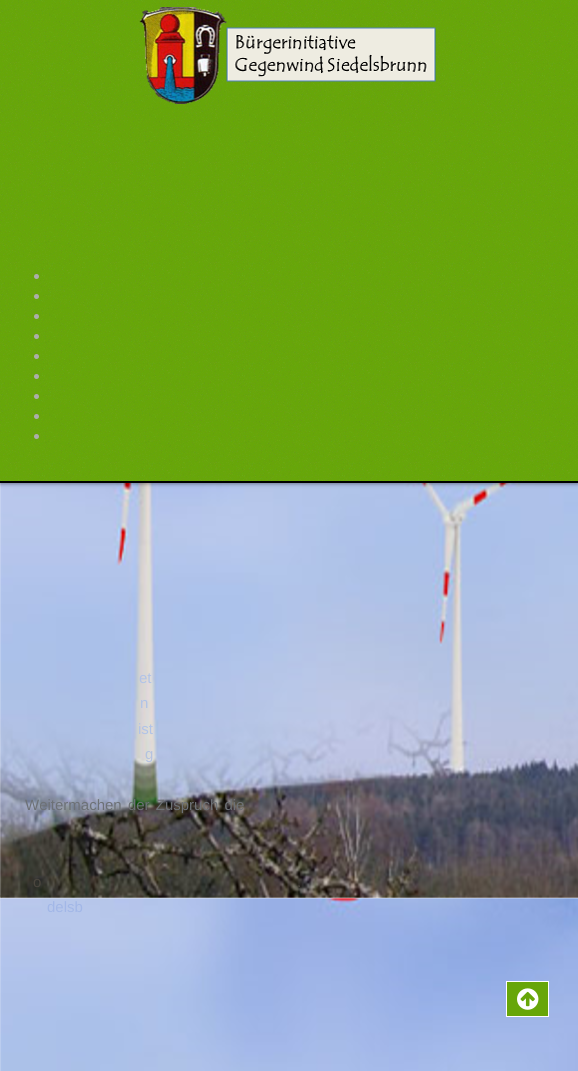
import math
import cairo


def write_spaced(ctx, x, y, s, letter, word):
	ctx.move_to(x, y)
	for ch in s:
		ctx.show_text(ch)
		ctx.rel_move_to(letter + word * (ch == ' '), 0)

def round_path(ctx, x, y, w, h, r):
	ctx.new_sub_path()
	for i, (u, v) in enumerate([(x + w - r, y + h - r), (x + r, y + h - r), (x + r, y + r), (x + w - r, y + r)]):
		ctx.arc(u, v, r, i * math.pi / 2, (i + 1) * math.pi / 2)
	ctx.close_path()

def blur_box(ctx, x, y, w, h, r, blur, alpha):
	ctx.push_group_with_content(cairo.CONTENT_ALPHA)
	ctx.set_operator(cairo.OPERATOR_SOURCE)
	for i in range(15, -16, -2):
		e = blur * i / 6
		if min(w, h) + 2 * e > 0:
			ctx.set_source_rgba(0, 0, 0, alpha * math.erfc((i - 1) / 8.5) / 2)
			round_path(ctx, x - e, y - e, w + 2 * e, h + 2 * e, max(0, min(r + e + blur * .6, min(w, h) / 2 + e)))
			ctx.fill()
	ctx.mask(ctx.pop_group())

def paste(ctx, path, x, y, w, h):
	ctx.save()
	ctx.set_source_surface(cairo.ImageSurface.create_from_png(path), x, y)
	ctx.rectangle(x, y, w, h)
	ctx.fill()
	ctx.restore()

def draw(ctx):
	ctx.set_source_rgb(1, 1, 1)
	ctx.paint()
	paste(ctx, 'media/1.png', 0, 483, 578, 588)
	ctx.set_source_rgb(0, 0, 0)
	ctx.rectangle(0, 482, 578, 1)
	ctx.fill()
	ctx.set_source_rgb(0, 0, 0)
	blur_box(ctx, 0, 2, 578, 482, 0, 2, 0.4)
	ctx.set_source_rgb(0.404, 0.651, 0.039)
	ctx.rectangle(0, 0, 578, 481)
	ctx.fill()
	ctx.set_source_rgb(0, 0, 0)
	ctx.rectangle(0, 481, 578, 1)
	ctx.fill()
	paste(ctx, 'media/2.png', 0, 0, 578, 481)
	paste(ctx, 'media/3.png', 139, 7, 297, 97)
	ctx.set_source_rgb(0.678, 0.678, 0.678)
	ctx.arc(36.5, 276.5, 2.5, 0, 2 * math.pi)
	ctx.fill()
	ctx.arc(36.5, 296.5, 2.5, 0, 2 * math.pi)
	ctx.fill()
	ctx.arc(36.5, 316.5, 2.5, 0, 2 * math.pi)
	ctx.fill()
	ctx.arc(36.5, 336.5, 2.5, 0, 2 * math.pi)
	ctx.fill()
	ctx.arc(36.5, 356.5, 2.5, 0, 2 * math.pi)
	ctx.fill()
	ctx.arc(36.5, 376.5, 2.5, 0, 2 * math.pi)
	ctx.fill()
	ctx.arc(36.5, 396.5, 2.5, 0, 2 * math.pi)
	ctx.fill()
	ctx.arc(36.5, 416.5, 2.5, 0, 2 * math.pi)
	ctx.fill()
	ctx.arc(36.5, 436.5, 2.5, 0, 2 * math.pi)
	ctx.fill()
	ctx.select_font_face('Liberation Sans')
	ctx.set_font_size(15)
	ctx.set_source_rgb(0.694, 0.765, 0.906)
	write_spaced(ctx, 139, 683, 'et', 0, 1)
	write_spaced(ctx, 140, 708, 'n', 0, 4)
	write_spaced(ctx, 138, 734, 'ist', 0, 3)
	ctx.set_source_rgb(0.706, 0.761, 0.878)
	write_spaced(ctx, 145, 759, 'g', 0, 25)
	ctx.set_source_rgb(0.427, 0.443, 0.463)
	write_spaced(ctx, 25, 810, 'Weitermachen der Zuspruch die', 0, 2)
	ctx.set_source_rgb(0.294, 0.275, 0.243)
	write_spaced(ctx, 33, 887, 'o', 0, 4)
	write_spaced(ctx, 297, 887, '.', 0, 4)
	ctx.set_source_rgb(0.635, 0.718, 0.906)
	write_spaced(ctx, 47, 912, 'delsb', 0, 2)
	ctx.set_source_rgb(0.404, 0.651, 0.039)
	ctx.rectangle(506.5, 981.5, 42, 35)
	ctx.fill_preserve()
	ctx.set_source_rgb(1, 1, 1)
	ctx.set_line_width(1)
	ctx.stroke()
	paste(ctx, 'media/4.png', 517, 988, 22, 22)


surface = cairo.ImageSurface(cairo.FORMAT_RGB24, 578, 1071)
ctx = cairo.Context(surface)
options = cairo.FontOptions()
options.set_hint_metrics(cairo.HINT_METRICS_OFF)
options.set_hint_style(cairo.HINT_STYLE_NONE)
ctx.set_font_options(options)
ctx.set_miter_limit(4)
draw(ctx)
surface.write_to_png('image.png')
